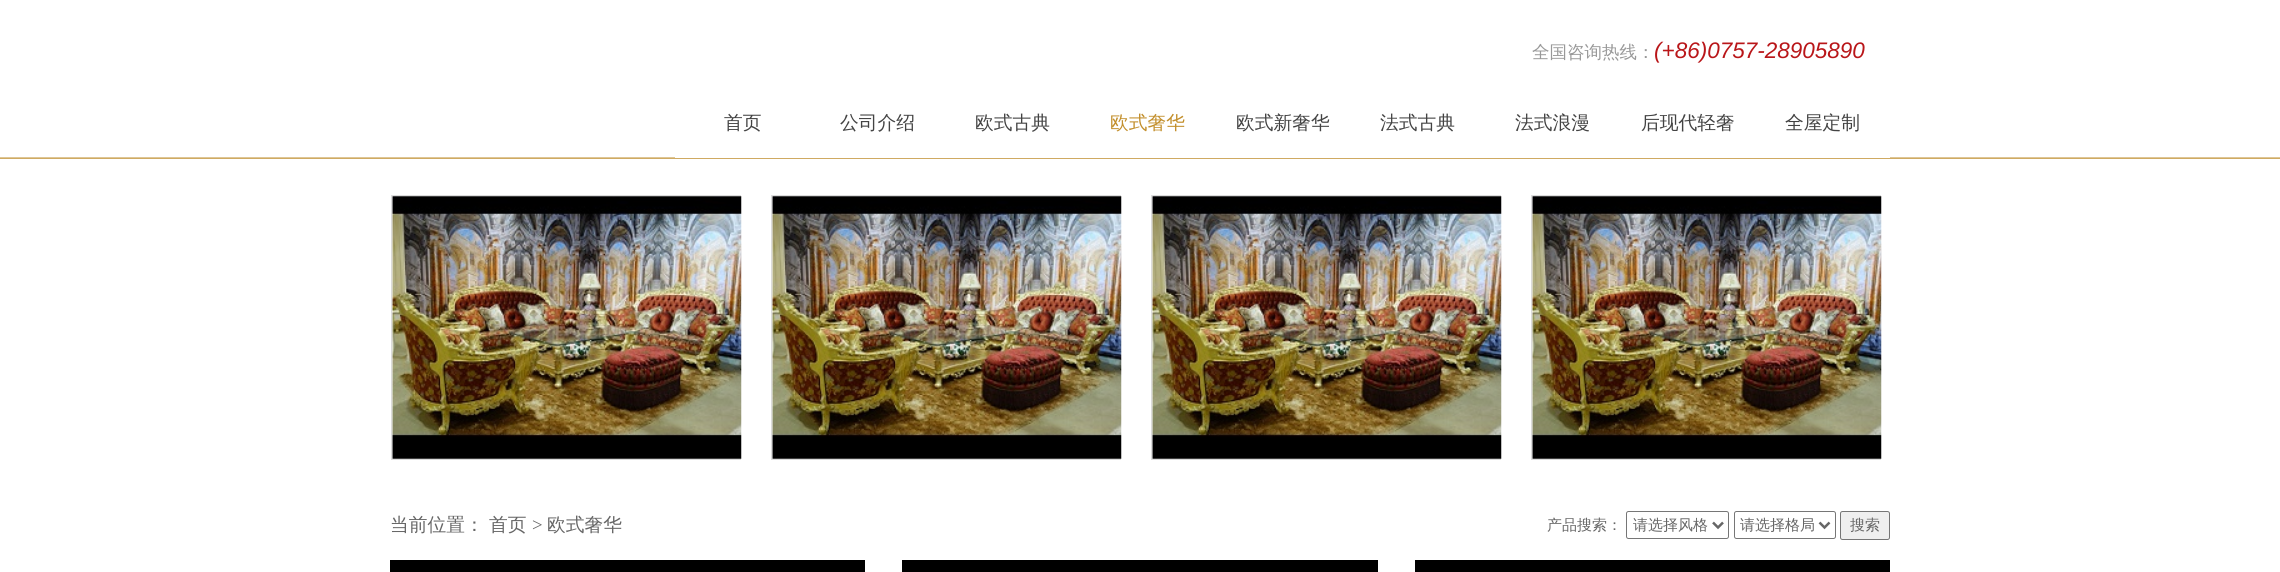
import math
import cairo


def round_path(ctx, x, y, w, h, r):
	ctx.new_sub_path()
	for i, (u, v) in enumerate([(x + w - r, y + h - r), (x + r, y + h - r), (x + r, y + r), (x + w - r, y + r)]):
		ctx.arc(u, v, r, i * math.pi / 2, (i + 1) * math.pi / 2)
	ctx.close_path()

def paste(ctx, path, x, y, w, h):
	ctx.save()
	ctx.set_source_surface(cairo.ImageSurface.create_from_png(path), x, y)
	ctx.rectangle(x, y, w, h)
	ctx.fill()
	ctx.restore()

def draw(ctx):
	ctx.set_source_rgb(1, 1, 1)
	ctx.paint()
	paste(ctx, 'media/1.png', 0, 157, 2280, 2)
	ctx.select_font_face('WenQuanYi Zen Hei Medium')
	ctx.set_font_size(17.5)
	ctx.set_source_rgb(0.6, 0.6, 0.6)
	ctx.move_to(1532, 58)
	ctx.show_text('全国咨询热线：')
	ctx.select_font_face('Liberation Sans', cairo.FONT_SLANT_ITALIC)
	ctx.set_font_size(22.5)
	ctx.set_source_rgb(0.725, 0.086, 0.098)
	ctx.move_to(1654, 58)
	ctx.show_text('(+86)0757-28905890')
	ctx.set_source_rgb(1, 1, 1)
	ctx.rectangle(675, 157, 1215, 1)
	ctx.fill()
	ctx.select_font_face('WenQuanYi Zen Hei Medium')
	ctx.set_font_size(18.75)
	ctx.set_source_rgb(0.263, 0.263, 0.263)
	for x, y, s in [
		(724, 129, '首页'),
		(840, 129, '公司介绍'),
		(975, 129, '欧式古典'),
	]:
		ctx.move_to(x, y)
		ctx.show_text(s)
	ctx.set_source_rgb(0.761, 0.557, 0.165)
	ctx.move_to(1110, 129)
	ctx.show_text('欧式奢华')
	ctx.set_source_rgb(0.263, 0.263, 0.263)
	for x, y, s in [
		(1236, 129, '欧式新奢华'),
		(1380, 129, '法式古典'),
		(1515, 129, '法式浪漫'),
		(1641, 129, '后现代轻奢'),
		(1785, 129, '全屋定制'),
	]:
		ctx.move_to(x, y)
		ctx.show_text(s)
	ctx.save()
	ctx.rectangle(391, 195, 350, 265)
	ctx.clip()
	ctx.rectangle(391.5, 195.5, 352, 264)
	ctx.set_source_rgb(0.863, 0.863, 0.863)
	ctx.set_line_width(1)
	ctx.stroke()
	ctx.restore()
	paste(ctx, 'media/2.png', 392, 196, 350, 263)
	ctx.save()
	ctx.rectangle(771, 195, 350, 265)
	ctx.clip()
	ctx.rectangle(771.5, 195.5, 352, 264)
	ctx.set_source_rgb(0.863, 0.863, 0.863)
	ctx.set_line_width(1)
	ctx.stroke()
	ctx.restore()
	paste(ctx, 'media/3.png', 772, 196, 350, 263)
	ctx.save()
	ctx.rectangle(1151, 195, 350, 265)
	ctx.clip()
	ctx.rectangle(1151.5, 195.5, 352, 264)
	ctx.set_source_rgb(0.863, 0.863, 0.863)
	ctx.set_line_width(1)
	ctx.stroke()
	ctx.restore()
	paste(ctx, 'media/4.png', 1152, 196, 350, 263)
	ctx.save()
	ctx.rectangle(1531, 195, 350, 265)
	ctx.clip()
	ctx.rectangle(1531.5, 195.5, 352, 264)
	ctx.set_source_rgb(0.863, 0.863, 0.863)
	ctx.set_line_width(1)
	ctx.stroke()
	ctx.restore()
	paste(ctx, 'media/5.png', 1532, 196, 350, 263)
	ctx.set_source_rgb(0.4, 0.4, 0.4)
	ctx.move_to(390, 531)
	ctx.show_text('当前位置：')
	ctx.move_to(489, 531)
	ctx.show_text('首页')
	ctx.select_font_face('Liberation Serif')
	ctx.move_to(532, 531)
	ctx.show_text('>')
	ctx.select_font_face('WenQuanYi Zen Hei Medium')
	ctx.move_to(547, 531)
	ctx.show_text('欧式奢华')
	ctx.set_font_size(15)
	ctx.move_to(1547, 530)
	ctx.show_text('产品搜索：')
	round_path(ctx, 1626.5, 511.5, 102, 27, 2)
	ctx.set_source_rgb(0.463, 0.463, 0.463)
	ctx.set_line_width(1)
	ctx.stroke()
	ctx.new_path()
	ctx.move_to(1713, 522.5)
	ctx.line_to(1718, 527.5)
	ctx.line_to(1723, 522.5)
	ctx.set_source_rgb(0.4, 0.4, 0.4)
	ctx.set_line_width(2.5)
	ctx.stroke()
	ctx.move_to(1633, 530)
	ctx.show_text('请选择风格')
	round_path(ctx, 1734.5, 511.5, 101, 27, 2)
	ctx.set_source_rgb(0.463, 0.463, 0.463)
	ctx.set_line_width(1)
	ctx.stroke()
	ctx.new_path()
	ctx.move_to(1819.5, 522.5)
	ctx.line_to(1824.5, 527.5)
	ctx.line_to(1829.5, 522.5)
	ctx.set_source_rgb(0.4, 0.4, 0.4)
	ctx.set_line_width(2.5)
	ctx.stroke()
	ctx.move_to(1740, 530)
	ctx.show_text('请选择格局')
	ctx.set_source_rgb(0.937, 0.937, 0.937)
	round_path(ctx, 1840.5, 511.5, 49, 28, 2)
	ctx.fill_preserve()
	ctx.set_source_rgb(0.463, 0.463, 0.463)
	ctx.set_line_width(1)
	ctx.stroke()
	ctx.set_source_rgb(0.4, 0.4, 0.4)
	ctx.move_to(1850, 530)
	ctx.show_text('搜索')
	ctx.set_source_rgb(0, 0, 0)
	ctx.rectangle(390, 560, 475, 12)
	ctx.rectangle(902, 560, 476, 12)
	ctx.rectangle(1415, 560, 475, 12)
	ctx.fill()


surface = cairo.ImageSurface(cairo.FORMAT_RGB24, 2280, 572)
ctx = cairo.Context(surface)
options = cairo.FontOptions()
options.set_hint_metrics(cairo.HINT_METRICS_OFF)
options.set_hint_style(cairo.HINT_STYLE_NONE)
ctx.set_font_options(options)
ctx.set_miter_limit(4)
draw(ctx)
surface.write_to_png('image.png')
